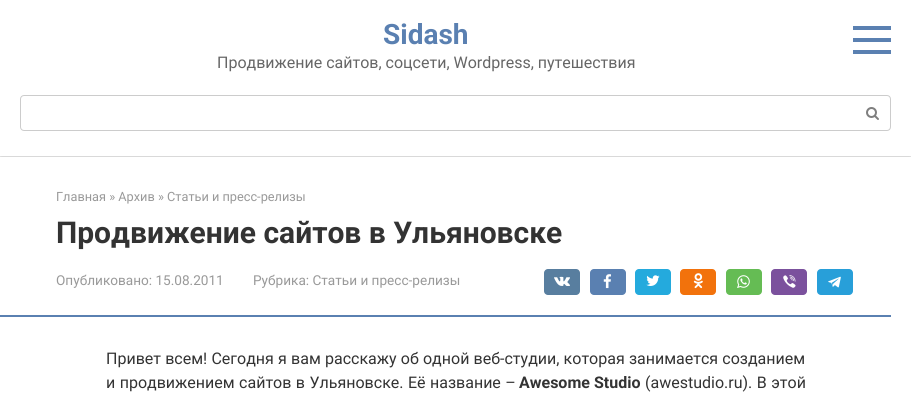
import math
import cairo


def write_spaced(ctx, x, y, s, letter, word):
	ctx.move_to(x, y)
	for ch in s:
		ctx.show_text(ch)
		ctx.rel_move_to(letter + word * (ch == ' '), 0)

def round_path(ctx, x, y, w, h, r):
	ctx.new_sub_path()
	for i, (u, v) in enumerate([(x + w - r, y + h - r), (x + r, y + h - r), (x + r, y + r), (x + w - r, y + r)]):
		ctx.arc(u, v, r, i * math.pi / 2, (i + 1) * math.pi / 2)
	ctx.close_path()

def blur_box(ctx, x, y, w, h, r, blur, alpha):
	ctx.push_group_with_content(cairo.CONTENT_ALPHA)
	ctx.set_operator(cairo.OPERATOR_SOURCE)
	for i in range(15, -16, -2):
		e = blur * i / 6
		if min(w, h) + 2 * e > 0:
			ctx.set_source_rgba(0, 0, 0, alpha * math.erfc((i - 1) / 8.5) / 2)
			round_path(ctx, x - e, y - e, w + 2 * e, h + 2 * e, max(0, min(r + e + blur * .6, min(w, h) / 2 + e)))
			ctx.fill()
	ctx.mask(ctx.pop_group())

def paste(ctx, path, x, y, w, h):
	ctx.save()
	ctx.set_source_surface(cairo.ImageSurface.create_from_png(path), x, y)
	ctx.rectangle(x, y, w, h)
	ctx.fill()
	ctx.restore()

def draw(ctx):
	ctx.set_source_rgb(0.925, 0.925, 0.925)
	ctx.paint()
	ctx.set_source_rgb(0, 0, 0)
	blur_box(ctx, 0, 3, 911, 156, 0, 2.5, 0.1)
	ctx.set_source_rgb(1, 1, 1)
	ctx.rectangle(0, 0, 911, 156)
	ctx.fill()
	ctx.select_font_face('Roboto', cairo.FONT_SLANT_NORMAL, cairo.FONT_WEIGHT_BOLD)
	ctx.set_font_size(28)
	ctx.set_source_rgb(0.353, 0.502, 0.694)
	ctx.move_to(383, 44)
	ctx.show_text('Sidash')
	ctx.select_font_face('Roboto')
	ctx.set_font_size(16)
	ctx.set_source_rgb(0.4, 0.4, 0.4)
	ctx.move_to(217, 68)
	ctx.show_text('Продвижение сайтов, соцсети, Wordpress, путешествия')
	ctx.set_source_rgb(0.353, 0.502, 0.694)
	ctx.rectangle(853, 26, 38, 4)
	ctx.rectangle(853, 50, 38, 4)
	ctx.rectangle(853, 38, 38, 4)
	ctx.fill()
	round_path(ctx, 20.5, 95.5, 870, 35, 3.5)
	ctx.set_source_rgb(0.8, 0.8, 0.8)
	ctx.set_line_width(1)
	ctx.stroke()
	paste(ctx, 'media/1.png', 866, 107, 13, 13)
	ctx.set_source_rgb(1, 1, 1)
	ctx.rectangle(0, 157, 911, 252)
	ctx.fill()
	ctx.set_font_size(12.75)
	ctx.set_source_rgb(0.6, 0.6, 0.6)
	ctx.move_to(56, 201)
	ctx.show_text('Главная » Архив » Статьи и пресс-релизы')
	ctx.select_font_face('Roboto', cairo.FONT_SLANT_NORMAL, cairo.FONT_WEIGHT_BOLD)
	ctx.set_font_size(30)
	ctx.set_source_rgb(0.2, 0.2, 0.2)
	ctx.move_to(56, 243)
	ctx.show_text('Продвижение сайтов в Ульяновске')
	ctx.select_font_face('Roboto')
	ctx.set_font_size(13.6)
	ctx.set_source_rgb(0.6, 0.6, 0.6)
	ctx.move_to(56, 285)
	ctx.show_text('Опубликовано: 15.08.2011')
	ctx.move_to(253, 285)
	ctx.show_text('Рубрика: Статьи и пресс-релизы')
	ctx.set_source_rgb(0.345, 0.494, 0.624)
	round_path(ctx, 544, 269, 36, 26, 4)
	ctx.fill()
	paste(ctx, 'media/2.png', 554, 276, 16, 10)
	ctx.set_source_rgb(0.353, 0.502, 0.694)
	round_path(ctx, 590, 269, 36, 26, 4)
	ctx.fill()
	paste(ctx, 'media/3.png', 603, 274, 8, 15)
	ctx.set_source_rgb(0.141, 0.667, 0.867)
	round_path(ctx, 635, 269, 36, 26, 4)
	ctx.fill()
	paste(ctx, 'media/4.png', 646, 275, 14, 11)
	ctx.set_source_rgb(0.949, 0.447, 0.047)
	round_path(ctx, 680, 269, 36, 26, 4)
	ctx.fill()
	paste(ctx, 'media/5.png', 693, 273, 10, 16)
	ctx.set_source_rgb(0.396, 0.737, 0.329)
	round_path(ctx, 726, 269, 36, 26, 4)
	ctx.fill()
	paste(ctx, 'media/6.png', 737, 275, 13, 13)
	ctx.set_source_rgb(0.482, 0.318, 0.616)
	round_path(ctx, 771, 269, 36, 26, 4)
	ctx.fill()
	paste(ctx, 'media/7.png', 783, 275, 13, 13)
	ctx.set_source_rgb(0.157, 0.624, 0.851)
	round_path(ctx, 817, 269, 36, 26, 4)
	ctx.fill()
	paste(ctx, 'media/8.png', 828, 276, 13, 12)
	ctx.set_source_rgb(0.353, 0.502, 0.694)
	ctx.rectangle(0, 315, 891, 2)
	ctx.fill()
	ctx.set_font_size(16)
	ctx.set_source_rgb(0.2, 0.2, 0.2)
	write_spaced(ctx, 106, 364, 'Привет всем! Сегодня я вам расскажу об одной веб-студии, которая занимается созданием', 0, 0.25)
	write_spaced(ctx, 106, 388, 'и продвижением сайтов в Ульяновске. Её название –', 0, 0.5)
	ctx.select_font_face('Roboto', cairo.FONT_SLANT_NORMAL, cairo.FONT_WEIGHT_BOLD)
	ctx.move_to(519, 388)
	ctx.show_text('Awesome')
	ctx.move_to(594, 388)
	ctx.show_text('Studio')
	ctx.select_font_face('Roboto')
	write_spaced(ctx, 645, 388, '(awestudio.ru). В этой', 0, 0.5)


surface = cairo.ImageSurface(cairo.FORMAT_RGB24, 911, 409)
ctx = cairo.Context(surface)
options = cairo.FontOptions()
options.set_hint_metrics(cairo.HINT_METRICS_OFF)
options.set_hint_style(cairo.HINT_STYLE_NONE)
ctx.set_font_options(options)
ctx.set_miter_limit(4)
draw(ctx)
surface.write_to_png('image.png')
